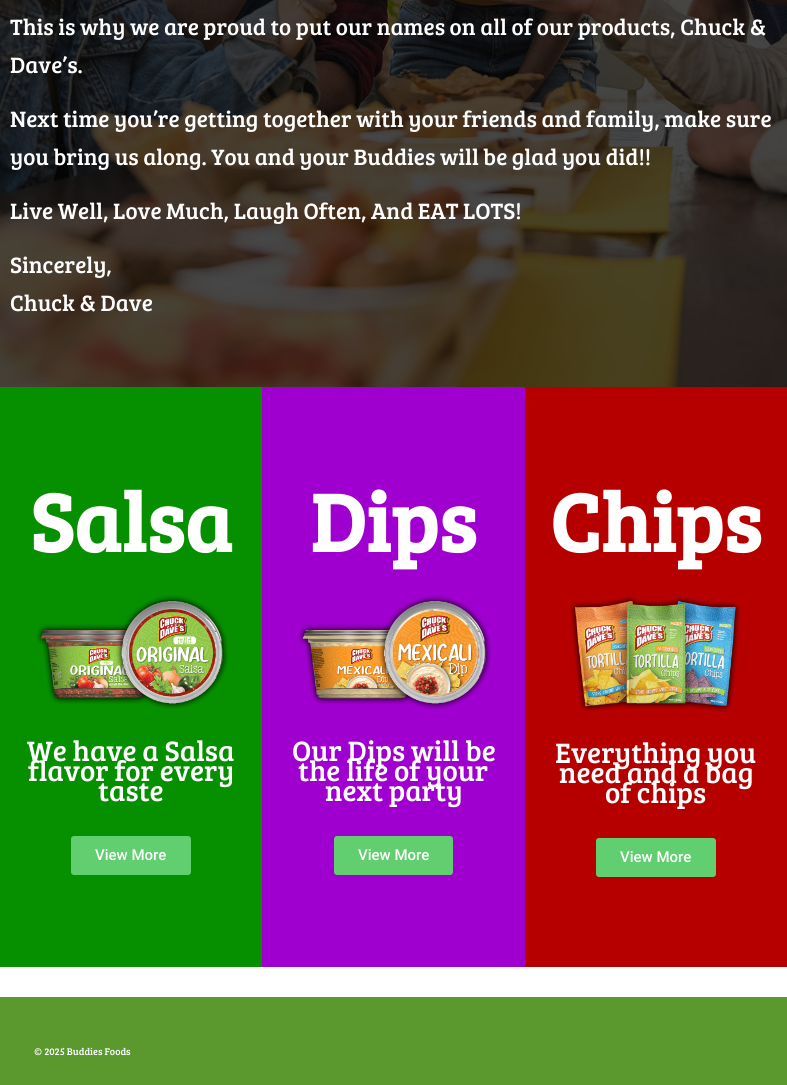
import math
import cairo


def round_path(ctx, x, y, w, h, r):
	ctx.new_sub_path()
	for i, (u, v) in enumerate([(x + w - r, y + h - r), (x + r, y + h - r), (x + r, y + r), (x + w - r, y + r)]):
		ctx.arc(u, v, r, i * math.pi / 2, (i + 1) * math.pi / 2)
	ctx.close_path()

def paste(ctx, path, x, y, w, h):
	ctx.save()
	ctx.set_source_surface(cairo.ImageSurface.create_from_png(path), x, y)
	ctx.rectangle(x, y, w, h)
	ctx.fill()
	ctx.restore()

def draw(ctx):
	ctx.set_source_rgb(1, 1, 1)
	ctx.paint()
	paste(ctx, 'media/1.png', 0, 0, 787, 387)
	ctx.select_font_face('Bree Serif')
	ctx.set_font_size(23)
	ctx.set_source_rgb(1, 1, 1)
	for x, y, s in [
		(10, 35, 'This is why we are proud to put our names on all of our products, Chuck &'),
		(10, 73, 'Dave’s.'),
		(10, 127, 'Next time you’re getting together with your friends and family, make sure'),
		(10, 165, 'you bring us along. You and your Buddies will be glad you did!!'),
		(10, 219, 'Live Well, Love Much, Laugh Often, And EAT LOTS!'),
		(10, 273, 'Sincerely,'),
		(10, 311, 'Chuck & Dave'),
	]:
		ctx.move_to(x, y)
		ctx.show_text(s)
	ctx.set_source_rgb(0.024, 0.565, 0)
	ctx.rectangle(0, 387, 262, 580)
	ctx.fill()
	ctx.select_font_face('Bree Serif', cairo.FONT_SLANT_NORMAL, cairo.FONT_WEIGHT_BOLD)
	ctx.set_font_size(84)
	ctx.set_source_rgb(1, 1, 1)
	ctx.move_to(30, 552)
	ctx.show_text('Salsa')
	paste(ctx, 'media/2.png', 36, 595, 192, 114)
	ctx.select_font_face('Bree Serif')
	ctx.set_font_size(29)
	for x, y, s in [
		(27, 761, 'We have a Salsa'),
		(28, 781, 'flavor for every'),
		(98, 801, 'taste'),
	]:
		ctx.move_to(x, y)
		ctx.show_text(s)
	ctx.set_source_rgb(0.38, 0.808, 0.439)
	round_path(ctx, 71, 836, 120, 39, 3)
	ctx.fill()
	ctx.select_font_face('Roboto Medium')
	ctx.set_font_size(15)
	ctx.set_source_rgb(1, 1, 1)
	ctx.move_to(95, 860)
	ctx.show_text('View More')
	ctx.set_source_rgb(0.627, 0, 0.812)
	ctx.rectangle(262, 387, 263, 580)
	ctx.fill()
	ctx.select_font_face('Bree Serif', cairo.FONT_SLANT_NORMAL, cairo.FONT_WEIGHT_BOLD)
	ctx.set_font_size(84)
	ctx.set_source_rgb(1, 1, 1)
	ctx.move_to(310, 552)
	ctx.show_text('Dips')
	paste(ctx, 'media/3.png', 298, 595, 194, 114)
	ctx.select_font_face('Bree Serif')
	ctx.set_font_size(29)
	for x, y, s in [
		(292, 761, 'Our Dips will be'),
		(298, 781, 'the life of your'),
		(325, 801, 'next party'),
	]:
		ctx.move_to(x, y)
		ctx.show_text(s)
	ctx.set_source_rgb(0.38, 0.808, 0.439)
	round_path(ctx, 334, 836, 119, 39, 3)
	ctx.fill()
	ctx.select_font_face('Roboto Medium')
	ctx.set_font_size(15)
	ctx.set_source_rgb(1, 1, 1)
	ctx.move_to(358, 860)
	ctx.show_text('View More')
	ctx.set_source_rgb(0.714, 0, 0)
	ctx.rectangle(525, 387, 262, 580)
	ctx.fill()
	ctx.select_font_face('Bree Serif', cairo.FONT_SLANT_NORMAL, cairo.FONT_WEIGHT_BOLD)
	ctx.set_font_size(84)
	ctx.set_source_rgb(1, 1, 1)
	ctx.move_to(550, 552)
	ctx.show_text('Chips')
	paste(ctx, 'media/4.png', 570, 596, 171, 116)
	ctx.select_font_face('Bree Serif')
	ctx.set_font_size(29)
	for x, y, s in [
		(555, 763, 'Everything you'),
		(559, 783, 'need and a bag'),
		(605, 803, 'of chips'),
	]:
		ctx.move_to(x, y)
		ctx.show_text(s)
	ctx.set_source_rgb(0.38, 0.808, 0.439)
	round_path(ctx, 596, 838, 120, 39, 3)
	ctx.fill()
	ctx.select_font_face('Roboto Medium')
	ctx.set_font_size(15)
	ctx.set_source_rgb(1, 1, 1)
	ctx.move_to(620, 862)
	ctx.show_text('View More')
	ctx.set_source_rgb(0.357, 0.6, 0.184)
	ctx.rectangle(0, 997, 787, 88)
	ctx.fill()
	ctx.select_font_face('Bree Serif')
	ctx.set_font_size(10)
	ctx.set_source_rgb(1, 1, 1)
	ctx.move_to(34, 1055)
	ctx.show_text('© 2025 Buddies Foods')


surface = cairo.ImageSurface(cairo.FORMAT_RGB24, 787, 1085)
ctx = cairo.Context(surface)
options = cairo.FontOptions()
options.set_hint_metrics(cairo.HINT_METRICS_OFF)
options.set_hint_style(cairo.HINT_STYLE_NONE)
ctx.set_font_options(options)
ctx.set_miter_limit(4)
draw(ctx)
surface.write_to_png('image.png')
